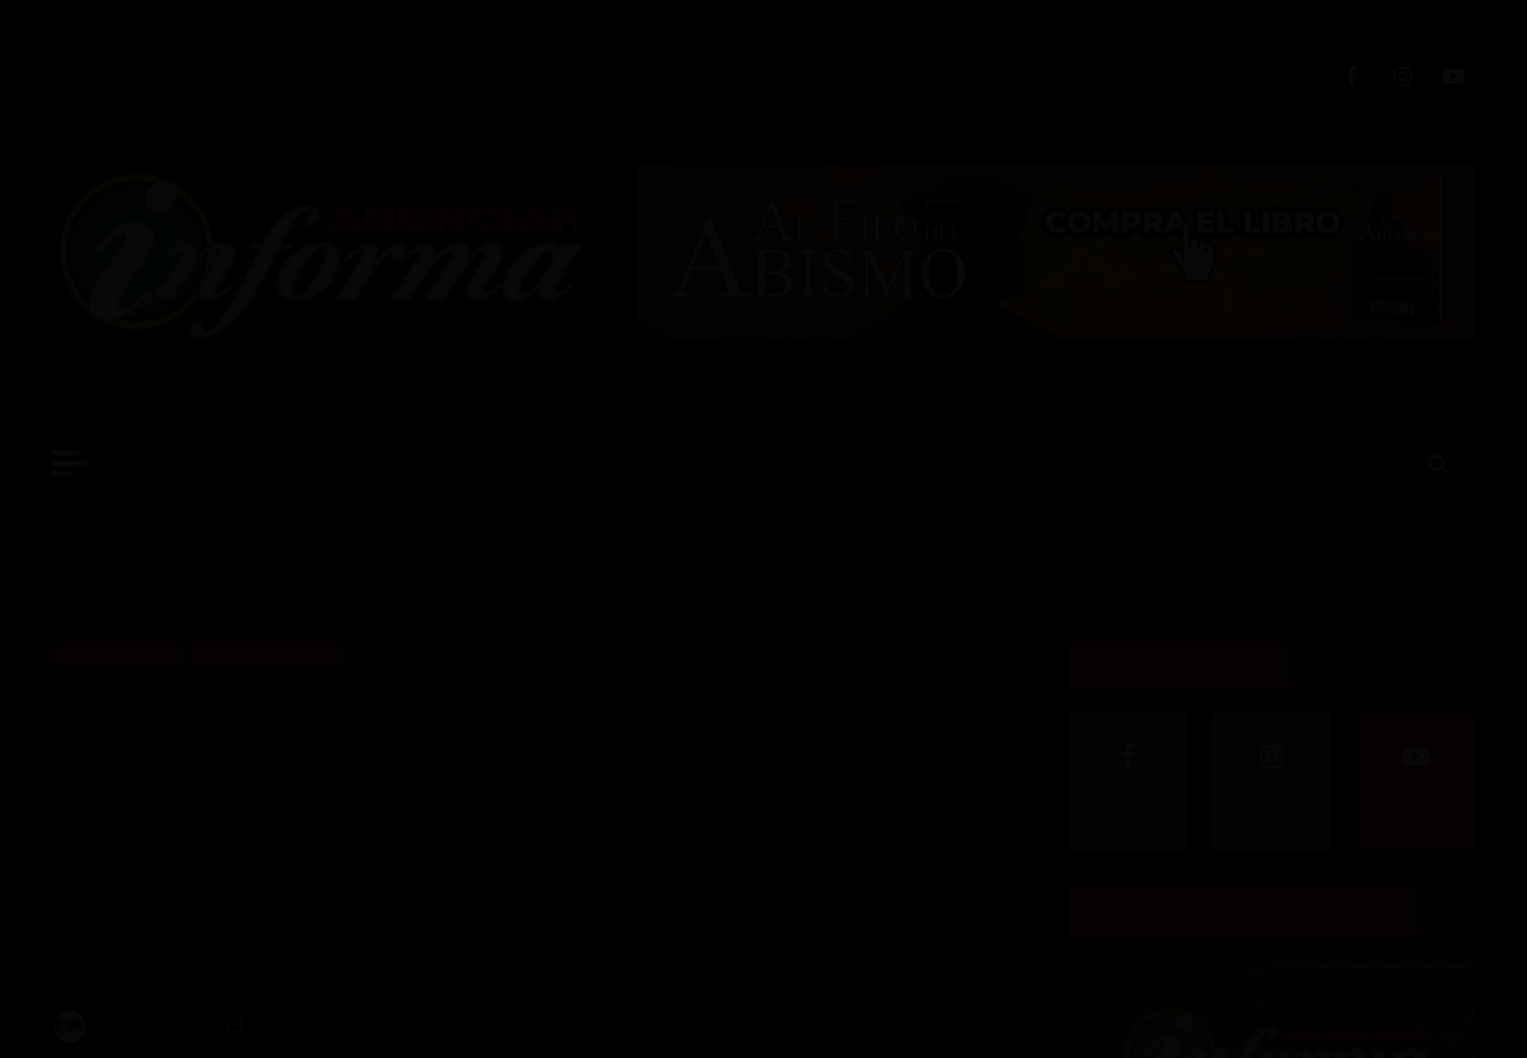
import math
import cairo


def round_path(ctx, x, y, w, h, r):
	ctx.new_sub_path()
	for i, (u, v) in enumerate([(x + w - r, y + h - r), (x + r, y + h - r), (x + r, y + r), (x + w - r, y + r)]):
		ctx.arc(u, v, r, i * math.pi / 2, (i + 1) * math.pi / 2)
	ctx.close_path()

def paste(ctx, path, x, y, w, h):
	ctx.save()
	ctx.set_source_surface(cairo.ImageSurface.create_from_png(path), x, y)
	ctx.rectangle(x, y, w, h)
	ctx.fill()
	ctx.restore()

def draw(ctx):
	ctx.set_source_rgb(0, 0, 0)
	ctx.paint()
	paste(ctx, 'media/1.png', 1346, 66, 11, 20)
	paste(ctx, 'media/2.png', 1393, 67, 19, 19)
	paste(ctx, 'media/3.png', 1443, 69, 21, 15)
	paste(ctx, 'media/4.png', 59, 174, 526, 169)
	paste(ctx, 'media/5.png', 636, 165, 840, 174)
	ctx.set_source_rgb(0.031, 0.031, 0.031)
	round_path(ctx, 51, 450, 30, 5, 2.5)
	ctx.fill()
	round_path(ctx, 51, 461, 36, 5, 2.5)
	ctx.fill()
	round_path(ctx, 51, 471, 21, 5, 2.5)
	ctx.fill()
	paste(ctx, 'media/6.png', 1428, 454, 20, 20)
	ctx.set_source_rgb(0.024, 0.004, 0.004)
	ctx.rectangle(51, 642, 134, 27)
	ctx.rectangle(192, 642, 152, 27)
	ctx.rectangle(51, 878, 5, 108)
	ctx.fill()
	paste(ctx, 'media/7.png', 54, 1011, 32, 32)
	paste(ctx, 'media/8.png', 226, 1015, 19, 19)
	ctx.rectangle(1068, 687, 408, 3)
	ctx.rectangle(1068, 642, 221, 45)
	ctx.fill()
	ctx.set_source_rgb(0.008, 0.012, 0.02)
	ctx.rectangle(1068, 713, 120, 138)
	ctx.fill()
	paste(ctx, 'media/9.png', 1121, 742, 14, 26)
	ctx.rectangle(1211, 713, 121, 138)
	ctx.fill()
	paste(ctx, 'media/10.png', 1260, 744, 24, 24)
	ctx.set_source_rgb(0.024, 0.004, 0.004)
	ctx.rectangle(1355, 713, 121, 138)
	ctx.fill()
	paste(ctx, 'media/11.png', 1402, 746, 28, 20)
	ctx.rectangle(1068, 933, 408, 3)
	ctx.fill()
	ctx.rectangle(1068, 888, 350, 45)
	ctx.fill()
	paste(ctx, 'media/12.png', 1067, 957, 409, 101)


surface = cairo.ImageSurface(cairo.FORMAT_RGB24, 1527, 1058)
ctx = cairo.Context(surface)
options = cairo.FontOptions()
options.set_hint_metrics(cairo.HINT_METRICS_OFF)
options.set_hint_style(cairo.HINT_STYLE_NONE)
ctx.set_font_options(options)
ctx.set_miter_limit(4)
draw(ctx)
surface.write_to_png('image.png')
